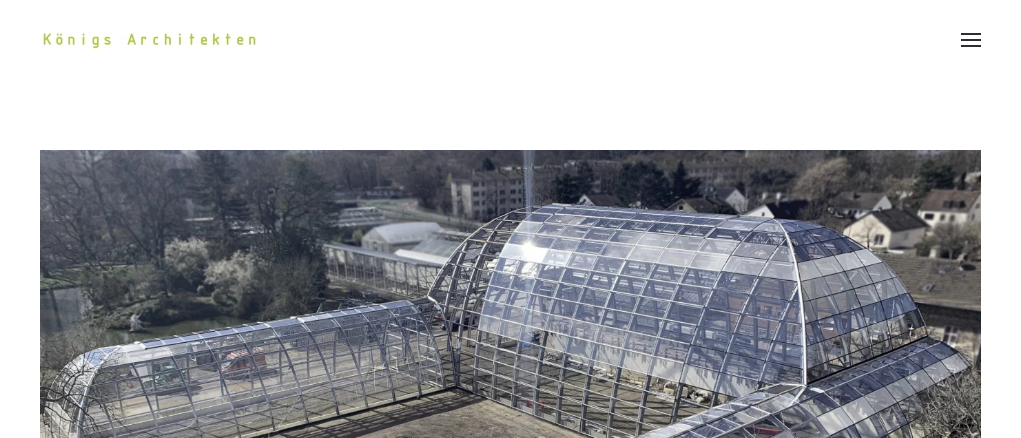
import math
import cairo


def paste(ctx, path, x, y, w, h):
	ctx.save()
	ctx.set_source_surface(cairo.ImageSurface.create_from_png(path), x, y)
	ctx.rectangle(x, y, w, h)
	ctx.fill()
	ctx.restore()

def draw(ctx):
	ctx.set_source_rgb(1, 1, 1)
	ctx.paint()
	paste(ctx, 'media/1.png', 41, 31, 216, 18)
	ctx.set_source_rgb(0.176, 0.18, 0.2)
	ctx.rectangle(961, 33, 20, 2)
	ctx.rectangle(961, 39, 20, 2)
	ctx.rectangle(961, 45, 20, 2)
	ctx.fill()
	paste(ctx, 'media/2.png', 40, 150, 941, 288)


surface = cairo.ImageSurface(cairo.FORMAT_RGB24, 1021, 438)
ctx = cairo.Context(surface)
options = cairo.FontOptions()
options.set_hint_metrics(cairo.HINT_METRICS_OFF)
options.set_hint_style(cairo.HINT_STYLE_NONE)
ctx.set_font_options(options)
ctx.set_miter_limit(4)
draw(ctx)
surface.write_to_png('image.png')
